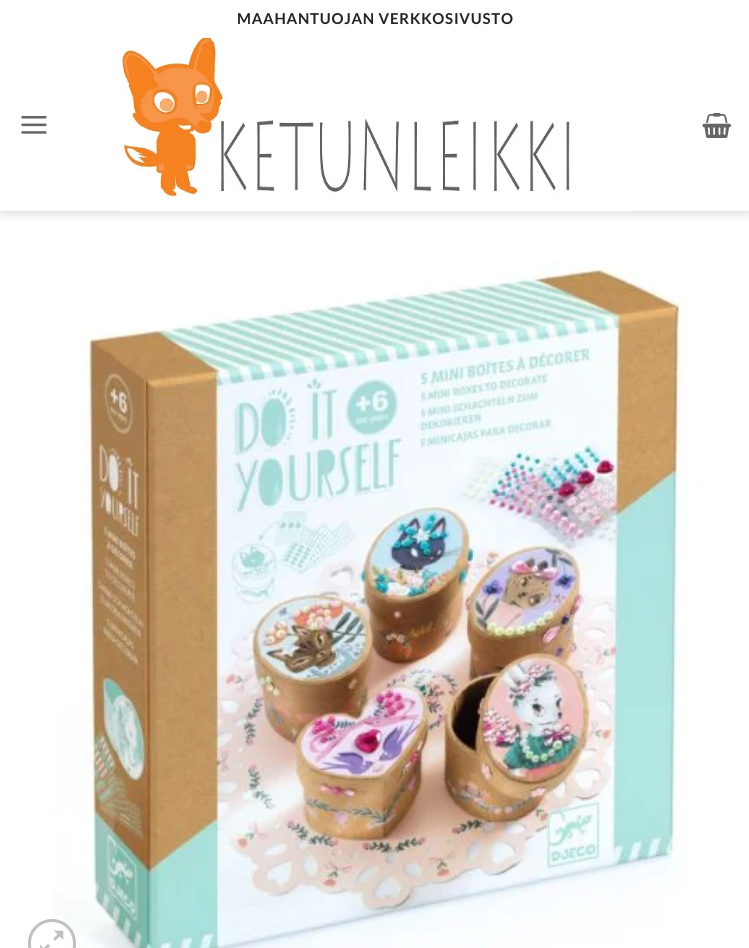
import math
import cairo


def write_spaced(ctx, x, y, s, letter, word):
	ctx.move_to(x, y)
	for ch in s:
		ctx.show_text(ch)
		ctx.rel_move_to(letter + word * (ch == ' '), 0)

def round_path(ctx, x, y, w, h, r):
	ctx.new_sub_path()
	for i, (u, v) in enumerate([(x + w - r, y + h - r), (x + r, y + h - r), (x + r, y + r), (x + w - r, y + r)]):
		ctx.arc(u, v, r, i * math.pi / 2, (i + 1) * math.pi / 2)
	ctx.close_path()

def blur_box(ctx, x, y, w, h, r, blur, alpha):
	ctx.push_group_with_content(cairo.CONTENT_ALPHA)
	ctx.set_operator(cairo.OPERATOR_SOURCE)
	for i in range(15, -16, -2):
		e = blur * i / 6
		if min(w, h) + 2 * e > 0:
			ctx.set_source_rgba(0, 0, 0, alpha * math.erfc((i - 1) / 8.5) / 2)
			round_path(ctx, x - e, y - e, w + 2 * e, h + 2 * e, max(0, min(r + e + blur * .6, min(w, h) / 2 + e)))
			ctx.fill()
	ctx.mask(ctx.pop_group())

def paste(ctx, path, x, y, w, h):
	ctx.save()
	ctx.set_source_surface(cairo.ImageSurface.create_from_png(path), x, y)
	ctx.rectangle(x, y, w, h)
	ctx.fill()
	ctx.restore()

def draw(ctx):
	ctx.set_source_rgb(1, 1, 1)
	ctx.paint()
	ctx.save()
	ctx.rectangle(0, 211, 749, 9)
	ctx.clip()
	ctx.set_source_rgb(0, 0, 0)
	blur_box(ctx, 1, 1, 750, 212, 0, 6, 0.15)
	ctx.restore()
	ctx.select_font_face('Lato', cairo.FONT_SLANT_NORMAL, cairo.FONT_WEIGHT_BOLD)
	ctx.set_font_size(15)
	ctx.set_source_rgb(0.141, 0.137, 0.137)
	write_spaced(ctx, 237, 24, 'MAAHANTUOJAN VERKKOSIVUSTO', 0.75, 0)
	paste(ctx, 'media/1.png', 21, 116, 26, 18)
	paste(ctx, 'media/2.png', 122, 38, 506, 174)
	paste(ctx, 'media/3.png', 702, 113, 29, 25)
	paste(ctx, 'media/4.png', 52, 261, 637, 687)
	round_path(ctx, 29.5, 920.5, 45, 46, 22.5)
	ctx.set_source_rgb(0.753, 0.753, 0.753)
	ctx.set_line_width(3)
	ctx.stroke()
	paste(ctx, 'media/5.png', 40, 930, 24, 18)


surface = cairo.ImageSurface(cairo.FORMAT_RGB24, 749, 948)
ctx = cairo.Context(surface)
options = cairo.FontOptions()
options.set_hint_metrics(cairo.HINT_METRICS_OFF)
options.set_hint_style(cairo.HINT_STYLE_NONE)
ctx.set_font_options(options)
ctx.set_miter_limit(4)
draw(ctx)
surface.write_to_png('image.png')
